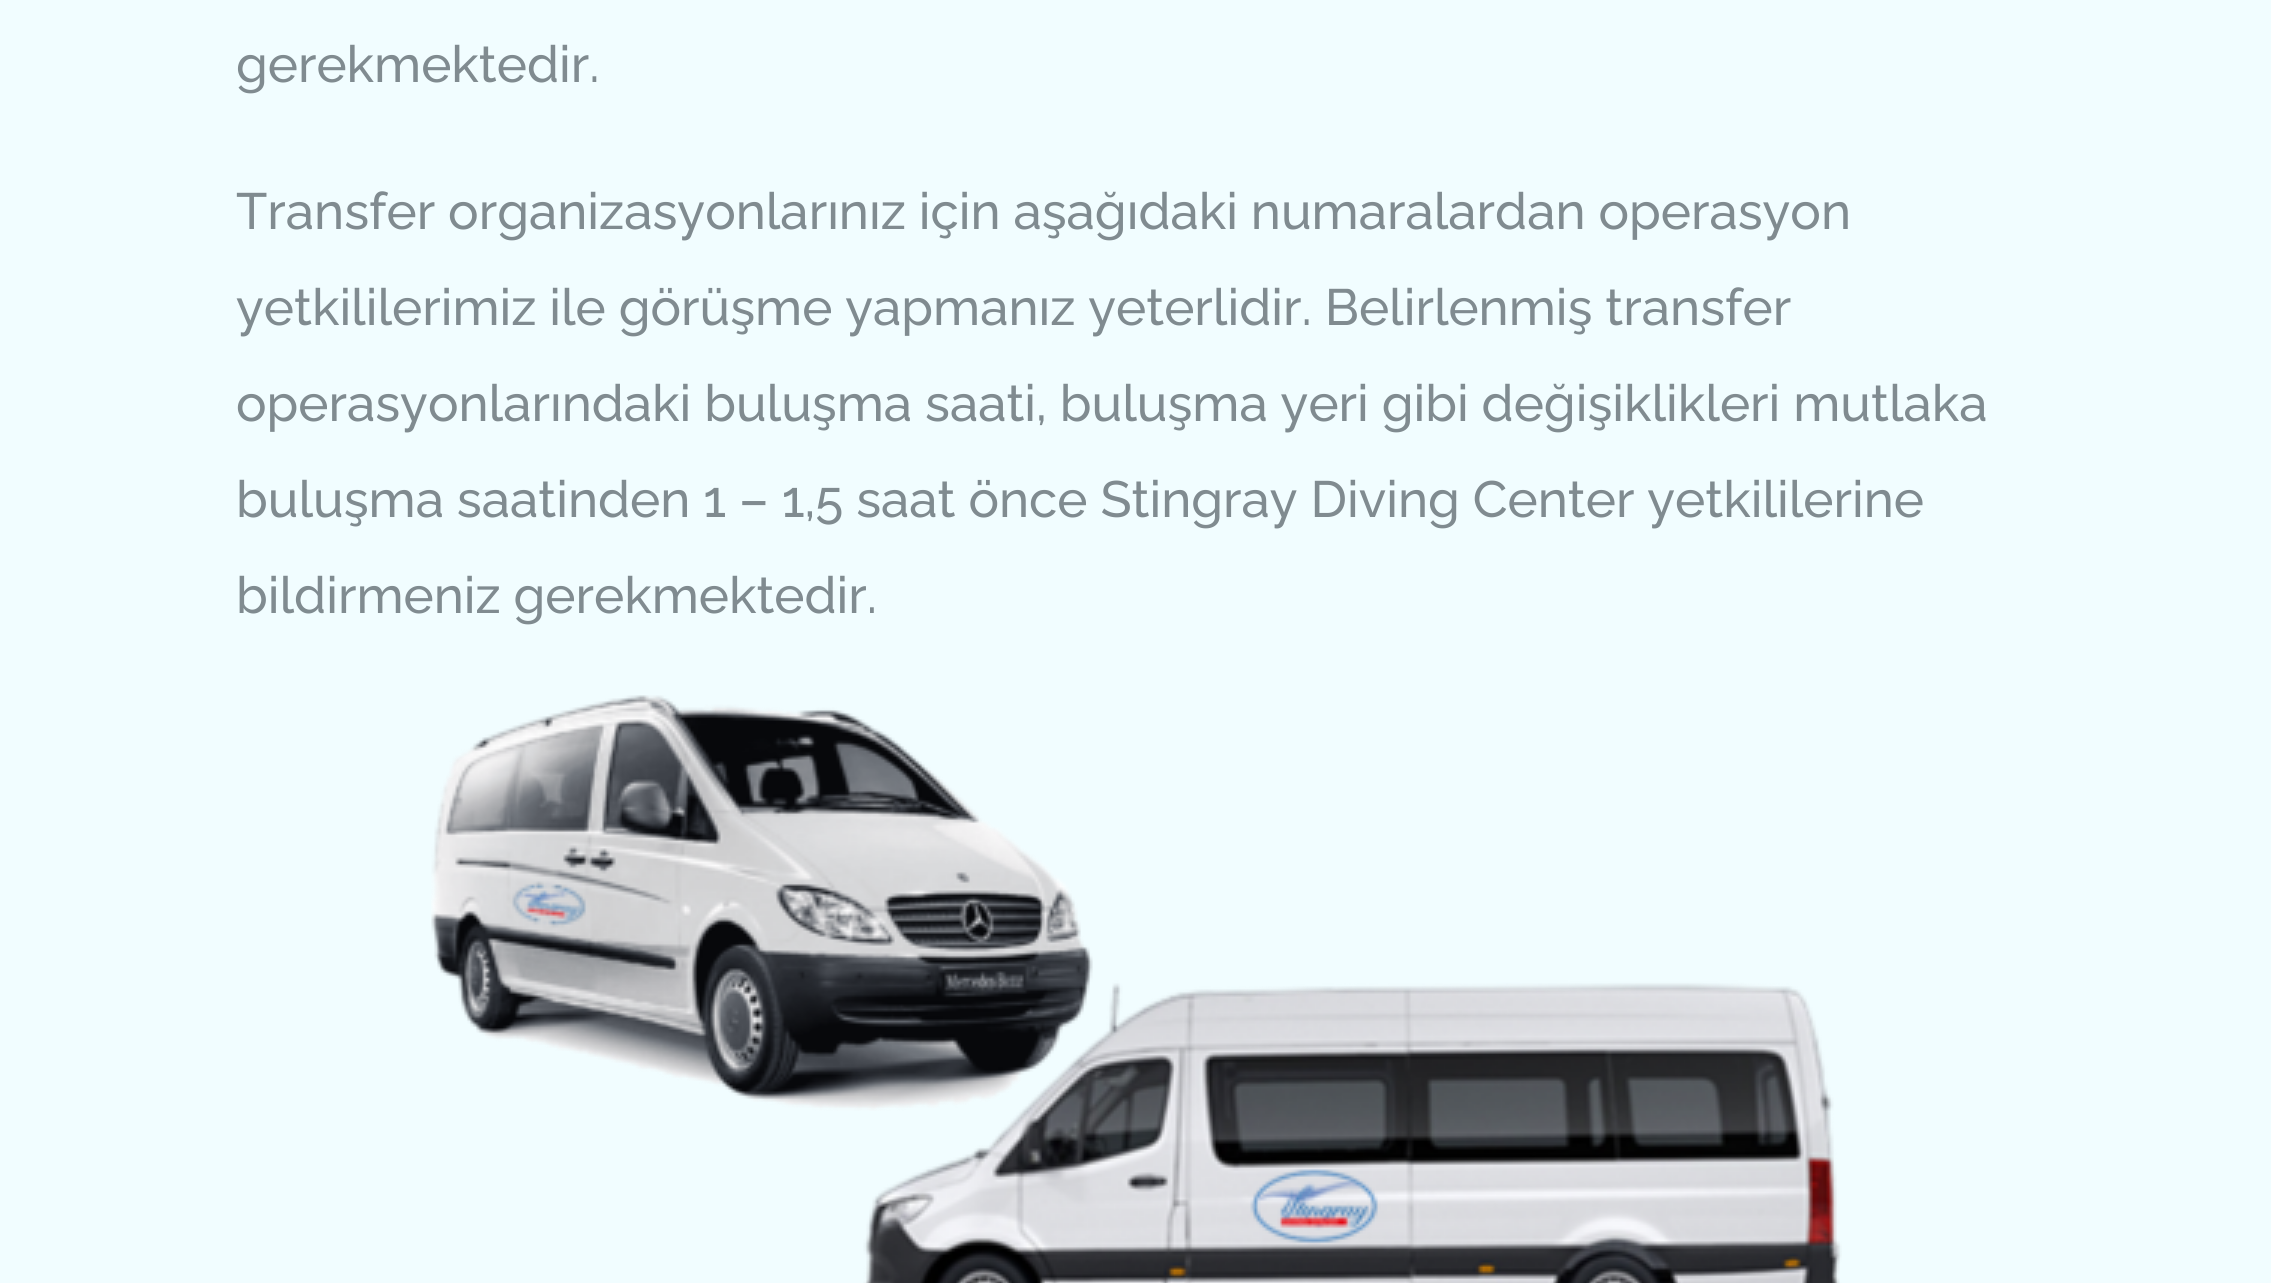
import math
import cairo


def paste(ctx, path, x, y, w, h):
	ctx.save()
	ctx.set_source_surface(cairo.ImageSurface.create_from_png(path), x, y)
	ctx.rectangle(x, y, w, h)
	ctx.fill()
	ctx.restore()

def draw(ctx):
	ctx.set_source_rgb(0.945, 0.992, 1)
	ctx.paint()
	ctx.select_font_face('Raleway Medium')
	ctx.set_font_size(51)
	ctx.set_source_rgb(0.502, 0.545, 0.565)
	for x, y, s in [
		(236, 82, 'gerekmektedir.'),
		(236, 229, 'Transfer organizasyonlarınız için aşağıdaki numaralardan operasyon'),
		(236, 325, 'yetkililerimiz ile görüşme yapmanız yeterlidir. Belirlenmiş transfer'),
		(236, 421, 'operasyonlarındaki buluşma saati, buluşma yeri gibi değişiklikleri mutlaka'),
		(236, 517, 'buluşma saatinden 1 – 1,5 saat önce Stingray Diving Center yetkililerine'),
		(236, 613, 'bildirmeniz gerekmektedir.'),
	]:
		ctx.move_to(x, y)
		ctx.show_text(s)
	paste(ctx, 'media/1.png', 431, 695, 1411, 588)


surface = cairo.ImageSurface(cairo.FORMAT_RGB24, 2271, 1283)
ctx = cairo.Context(surface)
options = cairo.FontOptions()
options.set_hint_metrics(cairo.HINT_METRICS_OFF)
options.set_hint_style(cairo.HINT_STYLE_NONE)
ctx.set_font_options(options)
ctx.set_miter_limit(4)
draw(ctx)
surface.write_to_png('image.png')
